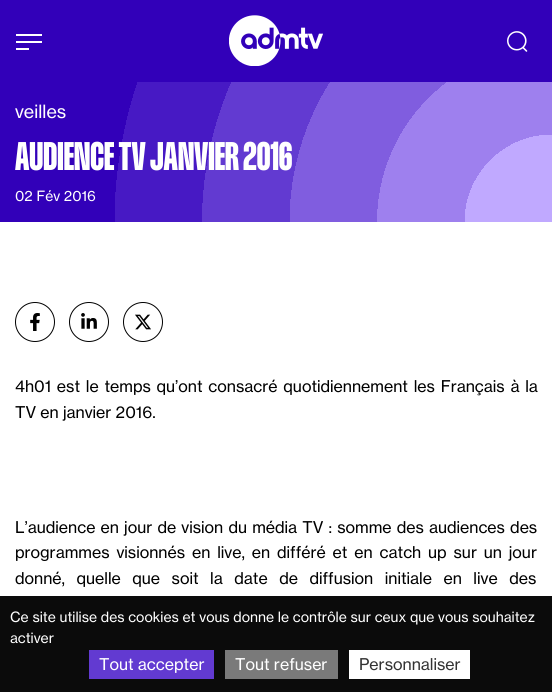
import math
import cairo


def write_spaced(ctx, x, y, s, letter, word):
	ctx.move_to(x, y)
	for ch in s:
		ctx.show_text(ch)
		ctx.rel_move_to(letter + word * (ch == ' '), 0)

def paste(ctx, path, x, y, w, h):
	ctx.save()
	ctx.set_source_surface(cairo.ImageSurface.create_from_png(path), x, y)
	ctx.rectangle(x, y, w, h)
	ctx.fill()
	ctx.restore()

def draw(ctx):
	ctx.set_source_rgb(1, 1, 1)
	ctx.paint()
	ctx.set_source_rgb(0.196, 0, 0.725)
	ctx.rectangle(0, 0, 552, 82)
	ctx.fill()
	paste(ctx, 'media/1.png', 229, 15, 94, 51)
	paste(ctx, 'media/2.png', 507, 31, 21, 21)
	ctx.set_source_rgb(1, 1, 1)
	ctx.rectangle(16, 41, 26, 2)
	ctx.rectangle(16, 34, 26, 2)
	ctx.rectangle(16, 48, 13, 2)
	ctx.fill()
	ctx.set_source_rgb(0.196, 0, 0.725)
	ctx.rectangle(0, 82, 110, 140)
	ctx.fill()
	gradient = cairo.RadialGradient(552, 222, 0, 552, 222, 625)
	gradient.add_color_stop_rgba(0.14, 0.753, 0.663, 1, 1)
	gradient.add_color_stop_rgba(0.14, 0.62, 0.502, 0.933, 1)
	gradient.add_color_stop_rgba(0.28, 0.62, 0.502, 0.933, 1)
	gradient.add_color_stop_rgba(0.28, 0.502, 0.365, 0.875, 1)
	gradient.add_color_stop_rgba(0.42, 0.502, 0.365, 0.875, 1)
	gradient.add_color_stop_rgba(0.42, 0.384, 0.227, 0.82, 1)
	gradient.add_color_stop_rgba(0.56, 0.384, 0.227, 0.82, 1)
	gradient.add_color_stop_rgba(0.56, 0.278, 0.098, 0.769, 1)
	gradient.add_color_stop_rgba(0.7, 0.278, 0.098, 0.769, 1)
	gradient.add_color_stop_rgba(0.7, 0.196, 0, 0.725, 1)
	ctx.set_source(gradient)
	ctx.rectangle(110, 82, 442, 140)
	ctx.fill()
	ctx.select_font_face('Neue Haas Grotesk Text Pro')
	ctx.set_font_size(18)
	ctx.set_source_rgb(1, 1, 1)
	ctx.move_to(15, 118)
	ctx.show_text('veilles')
	ctx.select_font_face('Lemon', cairo.FONT_SLANT_NORMAL, cairo.FONT_WEIGHT_BOLD)
	ctx.set_font_size(40)
	ctx.move_to(15, 170)
	ctx.show_text('AUDIENCE TV JANVIER 2016')
	ctx.select_font_face('Neue Haas Grotesk Text Pro')
	ctx.set_font_size(14)
	ctx.move_to(15, 201)
	ctx.show_text('02 Fév 2016')
	ctx.new_path()
	ctx.arc(35, 322, 19.5, 0, 2 * math.pi)
	ctx.set_source_rgb(0, 0, 0)
	ctx.set_line_width(1)
	ctx.stroke()
	paste(ctx, 'media/3.png', 30, 313, 10, 18)
	ctx.arc(89, 322, 19.5, 0, 2 * math.pi)
	ctx.stroke()
	paste(ctx, 'media/4.png', 81, 313, 16, 16)
	ctx.arc(143, 322, 19.5, 0, 2 * math.pi)
	ctx.stroke()
	paste(ctx, 'media/5.png', 135, 314, 16, 16)
	ctx.set_font_size(16)
	write_spaced(ctx, 15, 392, '4h01 est le temps qu’ont consacré quotidiennement les Français à la', 0, 1.5)
	ctx.move_to(15, 418)
	ctx.show_text('TV en janvier 2016.')
	write_spaced(ctx, 15, 533, 'L’audience en jour de vision du média TV : somme des audiences des', 0, 0.9)
	write_spaced(ctx, 15, 558, 'programmes visionnés en live, en différé et en catch up sur un jour', 0, 2.6)
	write_spaced(ctx, 15, 584, 'donné, quelle que soit la date de diffusion initiale en live des', 0, 7.25)
	ctx.set_source_rgb(0.043, 0.043, 0.043)
	ctx.rectangle(0, 596, 552, 96)
	ctx.fill()
	ctx.set_font_size(14)
	ctx.set_source_rgb(1, 1, 1)
	ctx.move_to(10, 622)
	ctx.show_text('Ce site utilise des cookies et vous donne le contrôle sur ceux que vous souhaitez')
	ctx.move_to(10, 643)
	ctx.show_text('activer')
	ctx.set_source_rgb(0.384, 0.227, 0.82)
	ctx.rectangle(89, 650, 125, 29)
	ctx.fill()
	ctx.set_font_size(16)
	ctx.set_source_rgb(1, 1, 1)
	ctx.move_to(99, 670)
	ctx.show_text('Tout accepter')
	ctx.set_source_rgb(0.478, 0.478, 0.478)
	ctx.rectangle(225, 650, 113, 29)
	ctx.fill()
	ctx.set_source_rgb(1, 1, 1)
	ctx.move_to(235, 670)
	ctx.show_text('Tout refuser')
	ctx.rectangle(349, 650, 121, 29)
	ctx.fill()
	ctx.set_source_rgb(0.2, 0.2, 0.2)
	ctx.move_to(359, 670)
	ctx.show_text('Personnaliser')


surface = cairo.ImageSurface(cairo.FORMAT_RGB24, 552, 692)
ctx = cairo.Context(surface)
options = cairo.FontOptions()
options.set_hint_metrics(cairo.HINT_METRICS_OFF)
options.set_hint_style(cairo.HINT_STYLE_NONE)
ctx.set_font_options(options)
ctx.set_miter_limit(4)
draw(ctx)
surface.write_to_png('image.png')
